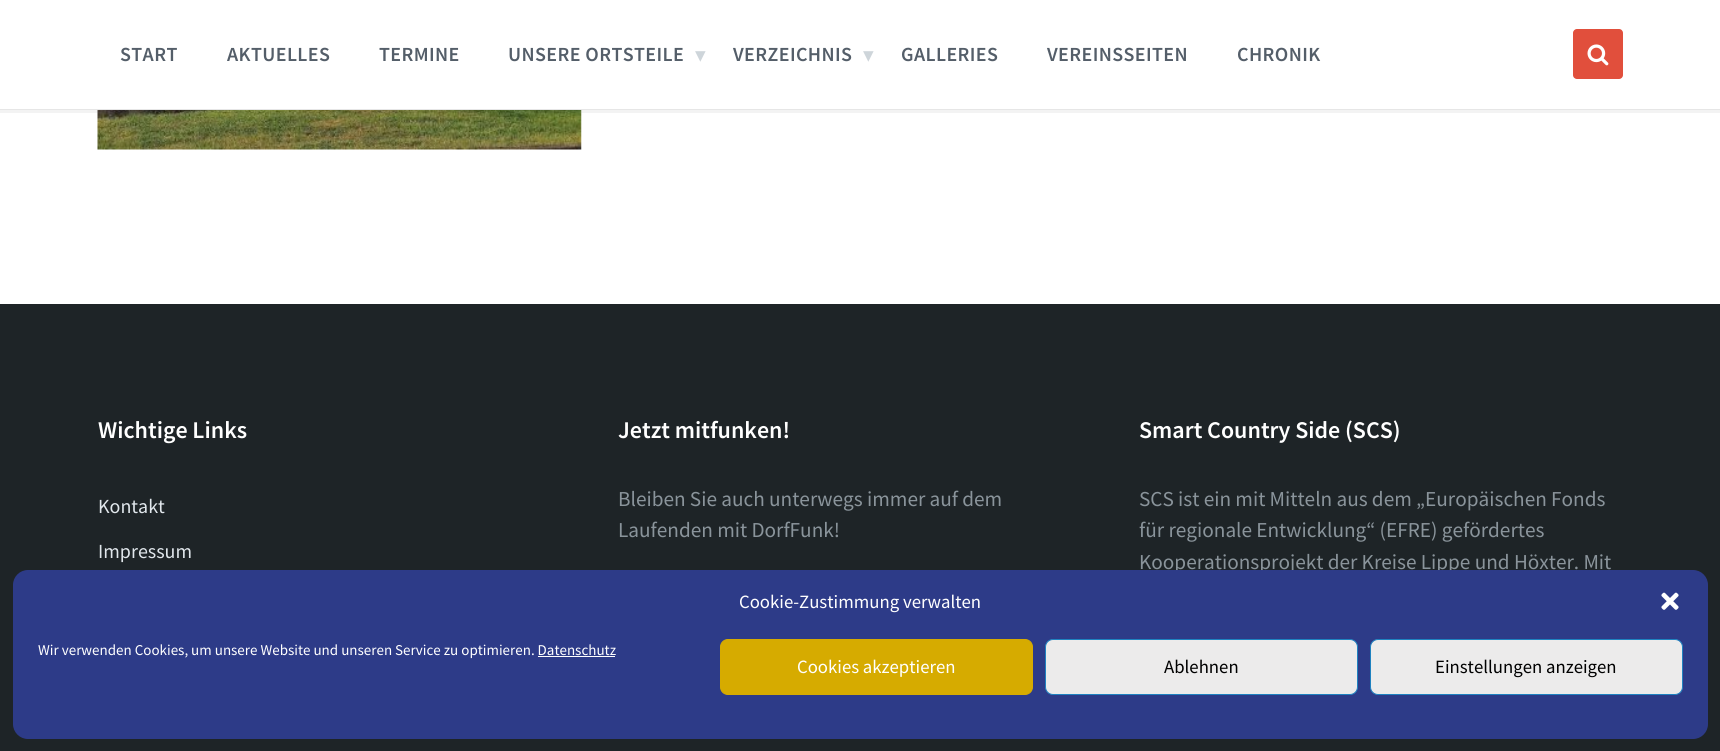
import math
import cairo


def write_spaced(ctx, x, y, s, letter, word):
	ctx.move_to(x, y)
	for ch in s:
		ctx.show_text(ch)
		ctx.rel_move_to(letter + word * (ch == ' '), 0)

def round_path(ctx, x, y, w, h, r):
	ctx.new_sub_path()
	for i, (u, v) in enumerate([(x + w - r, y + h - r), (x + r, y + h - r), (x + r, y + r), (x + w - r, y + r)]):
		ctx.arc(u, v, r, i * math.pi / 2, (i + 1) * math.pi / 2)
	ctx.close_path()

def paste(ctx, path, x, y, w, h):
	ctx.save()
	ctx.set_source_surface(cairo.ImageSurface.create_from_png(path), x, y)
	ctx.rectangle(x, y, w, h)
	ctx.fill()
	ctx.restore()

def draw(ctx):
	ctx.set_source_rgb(1, 1, 1)
	ctx.paint()
	paste(ctx, 'media/2.png', 97, 110, 485, 40)
	ctx.rectangle(-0.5, -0.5, 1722, 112)
	ctx.set_source_rgba(0, 0, 0, 0.05)
	ctx.set_line_width(3)
	ctx.stroke()
	ctx.set_source_rgb(1, 1, 1)
	ctx.rectangle(0, 0, 1720, 109)
	ctx.fill()
	ctx.set_source_rgb(0.902, 0.902, 0.902)
	ctx.rectangle(0, 109, 1720, 1)
	ctx.fill()
	ctx.select_font_face('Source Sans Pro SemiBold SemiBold')
	ctx.set_font_size(20)
	ctx.set_source_rgb(0.329, 0.369, 0.412)
	for x, y, s in [
		(120, 61, 'START'),
		(227, 61, 'AKTUELLES'),
		(379, 61, 'TERMINE'),
		(508, 61, 'UNSERE ORTSTEILE'),
	]:
		write_spaced(ctx, x, y, s, 0.4, 0)
	ctx.select_font_face('DejaVu Sans')
	ctx.set_font_size(21.25)
	ctx.set_source_rgb(0.808, 0.835, 0.855)
	ctx.move_to(695, 62)
	ctx.show_text('▾')
	ctx.select_font_face('Source Sans Pro SemiBold SemiBold')
	ctx.set_font_size(20)
	ctx.set_source_rgb(0.329, 0.369, 0.412)
	write_spaced(ctx, 733, 61, 'VERZEICHNIS', 0.4, 0)
	ctx.select_font_face('DejaVu Sans')
	ctx.set_font_size(21.25)
	ctx.set_source_rgb(0.808, 0.835, 0.855)
	ctx.move_to(863, 62)
	ctx.show_text('▾')
	ctx.select_font_face('Source Sans Pro SemiBold SemiBold')
	ctx.set_font_size(20)
	ctx.set_source_rgb(0.329, 0.369, 0.412)
	for x, y, s in [
		(901, 61, 'GALLERIES'),
		(1047, 61, 'VEREINSSEITEN'),
		(1237, 61, 'CHRONIK'),
	]:
		write_spaced(ctx, x, y, s, 0.4, 0)
	ctx.set_source_rgb(0.882, 0.31, 0.235)
	round_path(ctx, 1573, 29, 50, 50, 4)
	ctx.fill()
	paste(ctx, 'media/1.png', 1587, 44, 22, 22)
	ctx.set_source_rgb(0.118, 0.141, 0.153)
	ctx.rectangle(0, 304, 1720, 447)
	ctx.fill()
	ctx.set_font_size(24)
	ctx.set_source_rgb(1, 1, 1)
	ctx.move_to(98, 438)
	ctx.show_text('Wichtige Links')
	ctx.select_font_face('Source Sans Pro')
	ctx.set_font_size(20)
	ctx.set_source_rgb(0.882, 0.906, 0.925)
	ctx.move_to(98, 513)
	ctx.show_text('Kontakt')
	ctx.move_to(98, 558)
	ctx.show_text('Impressum')
	ctx.select_font_face('Source Sans Pro SemiBold SemiBold')
	ctx.set_font_size(24)
	ctx.set_source_rgb(1, 1, 1)
	ctx.move_to(618, 438)
	ctx.show_text('Jetzt mitfunken!')
	ctx.select_font_face('Source Sans Pro')
	ctx.set_font_size(21.25)
	ctx.set_source_rgb(0.541, 0.58, 0.608)
	ctx.move_to(618, 506)
	ctx.show_text('Bleiben Sie auch unterwegs immer auf dem')
	ctx.move_to(618, 537)
	ctx.show_text('Laufenden mit DorfFunk!')
	ctx.select_font_face('Source Sans Pro SemiBold SemiBold')
	ctx.set_font_size(24)
	ctx.set_source_rgb(1, 1, 1)
	ctx.move_to(1139, 438)
	ctx.show_text('Smart Country Side (SCS)')
	ctx.select_font_face('Source Sans Pro')
	ctx.set_font_size(21.25)
	ctx.set_source_rgb(0.541, 0.58, 0.608)
	for x, y, s in [
		(1139, 506, 'SCS ist ein mit Mitteln aus dem „Europäischen Fonds'),
		(1139, 537, 'für regionale Entwicklung“ (EFRE) gefördertes'),
		(1139, 569, 'Kooperationsprojekt der Kreise Lippe und Höxter. Mit'),
	]:
		ctx.move_to(x, y)
		ctx.show_text(s)
	ctx.set_source_rgb(0.176, 0.231, 0.533)
	round_path(ctx, 13, 570, 1695, 169, 15)
	ctx.fill()
	ctx.set_font_size(18.75)
	ctx.set_source_rgb(1, 1, 1)
	ctx.move_to(739, 608)
	ctx.show_text('Cookie-Zustimmung verwalten')
	paste(ctx, 'media/3.png', 1661, 592, 18, 18)
	ctx.set_font_size(15)
	ctx.move_to(38, 655)
	ctx.show_text('Wir verwenden Cookies, um unsere Website und unseren Service zu optimieren. Datenschutz')
	ctx.rectangle(538, 656, 77, 1)
	ctx.fill()
	ctx.set_source_rgb(0.839, 0.671, 0)
	round_path(ctx, 720.5, 639.5, 312, 55, 7.5)
	ctx.fill_preserve()
	ctx.set_line_width(1)
	ctx.stroke()
	ctx.set_font_size(18.75)
	ctx.set_source_rgb(1, 1, 1)
	ctx.move_to(797, 673)
	ctx.show_text('Cookies akzeptieren')
	ctx.set_source_rgb(0.922, 0.918, 0.918)
	round_path(ctx, 1045.5, 639.5, 312, 55, 7.5)
	ctx.fill_preserve()
	ctx.set_source_rgb(0.122, 0.51, 0.753)
	ctx.stroke()
	ctx.set_source_rgb(0, 0, 0)
	ctx.move_to(1164, 673)
	ctx.show_text('Ablehnen')
	ctx.set_source_rgb(0.922, 0.918, 0.918)
	round_path(ctx, 1370.5, 639.5, 312, 55, 7.5)
	ctx.fill_preserve()
	ctx.set_source_rgb(0.122, 0.51, 0.753)
	ctx.stroke()
	ctx.set_source_rgb(0, 0, 0)
	ctx.move_to(1435, 673)
	ctx.show_text('Einstellungen anzeigen')


surface = cairo.ImageSurface(cairo.FORMAT_RGB24, 1720, 751)
ctx = cairo.Context(surface)
options = cairo.FontOptions()
options.set_hint_metrics(cairo.HINT_METRICS_OFF)
options.set_hint_style(cairo.HINT_STYLE_NONE)
ctx.set_font_options(options)
ctx.set_miter_limit(4)
draw(ctx)
surface.write_to_png('image.png')
